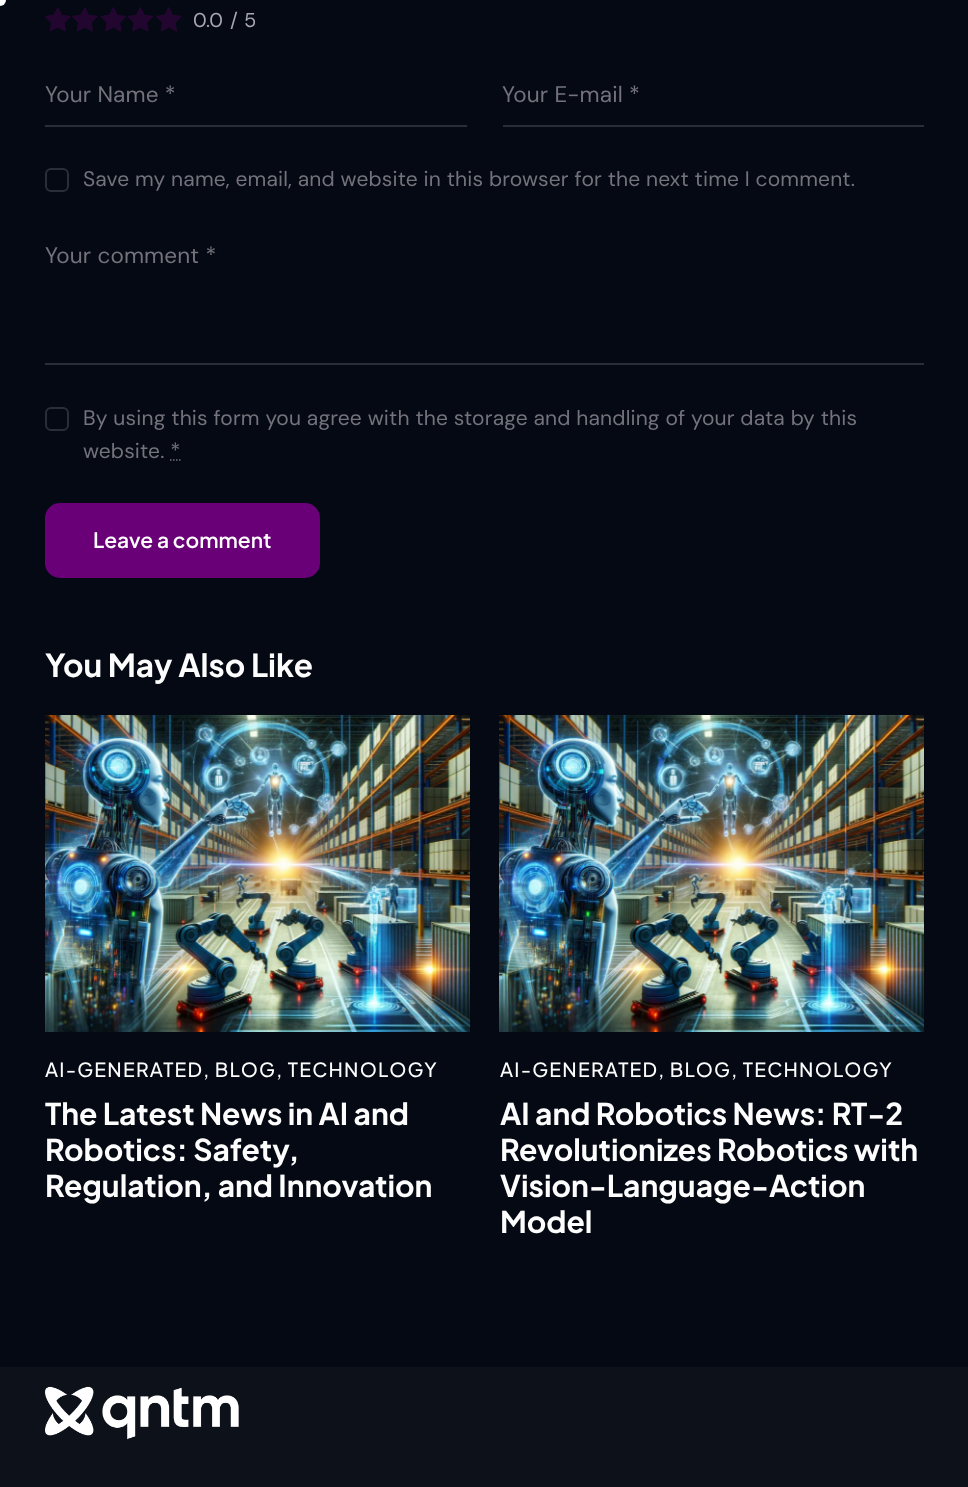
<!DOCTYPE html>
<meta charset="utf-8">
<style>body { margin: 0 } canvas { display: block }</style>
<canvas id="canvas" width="968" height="1487"></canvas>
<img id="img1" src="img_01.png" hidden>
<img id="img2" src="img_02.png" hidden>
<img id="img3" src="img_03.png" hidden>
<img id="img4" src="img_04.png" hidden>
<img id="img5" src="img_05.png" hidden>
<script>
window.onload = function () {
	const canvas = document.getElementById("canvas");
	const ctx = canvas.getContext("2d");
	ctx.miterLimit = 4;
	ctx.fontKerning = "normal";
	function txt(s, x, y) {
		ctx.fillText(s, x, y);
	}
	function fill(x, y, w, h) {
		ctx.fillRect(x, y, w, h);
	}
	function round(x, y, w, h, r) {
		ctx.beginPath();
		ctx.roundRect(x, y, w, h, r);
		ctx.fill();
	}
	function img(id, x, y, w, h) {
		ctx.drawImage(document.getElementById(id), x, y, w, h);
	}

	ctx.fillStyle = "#050913";
	fill(0, 0, 968, 1487);
	ctx.fillStyle = "#FFFFFF";
	ctx.beginPath();
	ctx.arc(0, 0, 6, 0, Math.PI * 2);
	ctx.fill();
	img("img1", 45, 7, 26, 25);
	img("img1", 72, 7, 26, 25);
	img("img2", 100, 7, 26, 25);
	img("img2", 127, 7, 26, 25);
	img("img1", 156, 7, 26, 25);
	ctx.fillStyle = "#2A2E36";
	fill(45, 125, 422, 2);
	fill(503, 125, 421, 2);
	ctx.beginPath();
	ctx.roundRect(46, 169, 22, 22, 5);
	ctx.strokeStyle = "#2A2E36";
	ctx.lineWidth = 2;
	ctx.stroke();
	fill(45, 363, 879, 2);
	ctx.beginPath();
	ctx.roundRect(46, 408, 22, 22, 5);
	ctx.stroke();
	ctx.beginPath();
	ctx.moveTo(170, 460);
	ctx.lineTo(171.5, 460);
	ctx.moveTo(173, 460);
	ctx.lineTo(174.5, 460);
	ctx.moveTo(176, 460);
	ctx.lineTo(177.5, 460);
	ctx.moveTo(179, 460);
	ctx.lineTo(180.5, 460);
	ctx.strokeStyle = "#74727B";
	ctx.lineWidth = 1.5;
	ctx.stroke();
	ctx.fillStyle = "#690077";
	round(45, 503, 275, 75, 15);
	img("img3", 45, 715, 425, 317);
	img("img4", 499, 715, 425, 317);
	ctx.fillStyle = "#0D111A";
	fill(0, 1367, 968, 120);
	img("img5", 45, 1386, 194, 54);
	ctx.letterSpacing = "0.15px";
	ctx.font = "20px DM Sans";
	ctx.fillStyle = "#A9A7B0";
	txt("0.0", 193, 27);
	txt("/", 230, 27);
	txt("5", 244, 27);
	ctx.font = "22.5px DM Sans";
	ctx.fillStyle = "#74727B";
	txt("Your Name *", 45, 102);
	txt("Your E-mail *", 502, 102);
	ctx.font = "21px DM Sans";
	txt("Save my name, email, and website in this browser for the next time I comment.", 83, 186);
	ctx.font = "22.5px DM Sans";
	txt("Your comment *", 45, 263);
	ctx.font = "21px DM Sans";
	txt("By using this form you agree with the storage and handling of your data by this", 83, 425);
	txt("website. *", 83, 458);
	ctx.letterSpacing = "0px";
	ctx.font = "600 21px Plus Jakarta Sans";
	ctx.fillStyle = "#FDFDFD";
	txt("Leave a comment", 93, 548);
	ctx.font = "bold 31.5px Plus Jakarta Sans";
	txt("You May Also Like", 45, 677);
	ctx.letterSpacing = "1.2px";
	ctx.font = "500 19.5px Plus Jakarta Sans";
	txt("AI-GENERATED, BLOG, TECHNOLOGY", 45, 1077);
	ctx.letterSpacing = "0px";
	ctx.font = "bold 30px Plus Jakarta Sans";
	txt("The Latest News in AI and", 45, 1125);
	txt("Robotics: Safety,", 45, 1161);
	txt("Regulation, and Innovation", 45, 1197);
	ctx.letterSpacing = "1.2px";
	ctx.font = "500 19.5px Plus Jakarta Sans";
	txt("AI-GENERATED, BLOG, TECHNOLOGY", 500, 1077);
	ctx.letterSpacing = "0px";
	ctx.font = "bold 30px Plus Jakarta Sans";
	txt("AI and Robotics News: RT-2", 500, 1125);
	txt("Revolutionizes Robotics with", 500, 1161);
	txt("Vision-Language-Action", 500, 1197);
	txt("Model", 500, 1233);
};
</script>
